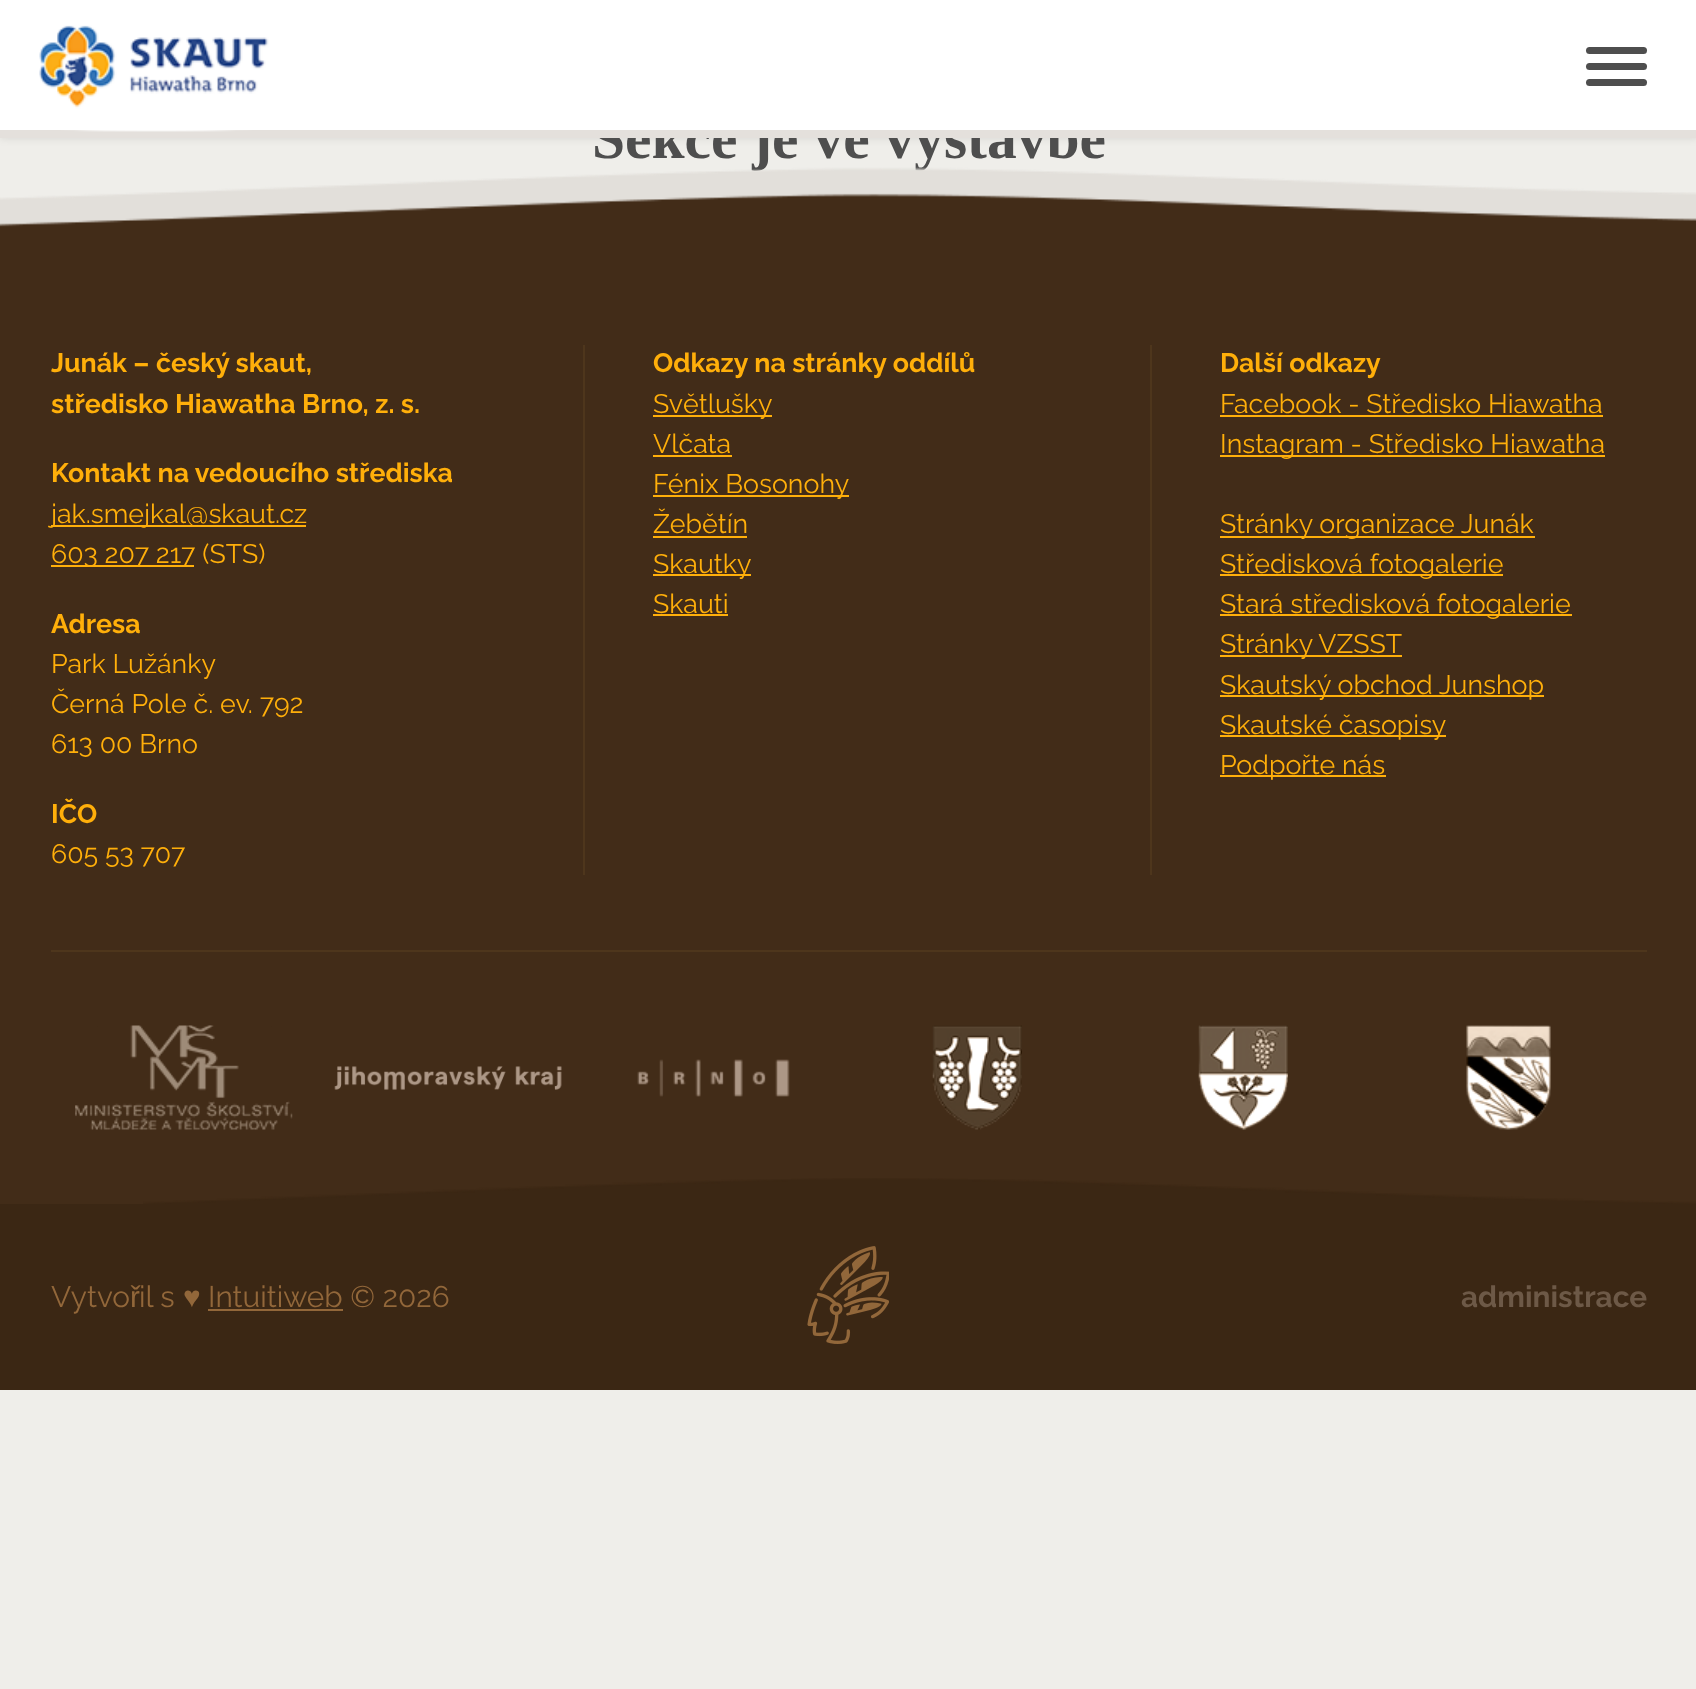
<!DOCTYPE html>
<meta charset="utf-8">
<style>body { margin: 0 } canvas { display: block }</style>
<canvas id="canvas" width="1696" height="1689"></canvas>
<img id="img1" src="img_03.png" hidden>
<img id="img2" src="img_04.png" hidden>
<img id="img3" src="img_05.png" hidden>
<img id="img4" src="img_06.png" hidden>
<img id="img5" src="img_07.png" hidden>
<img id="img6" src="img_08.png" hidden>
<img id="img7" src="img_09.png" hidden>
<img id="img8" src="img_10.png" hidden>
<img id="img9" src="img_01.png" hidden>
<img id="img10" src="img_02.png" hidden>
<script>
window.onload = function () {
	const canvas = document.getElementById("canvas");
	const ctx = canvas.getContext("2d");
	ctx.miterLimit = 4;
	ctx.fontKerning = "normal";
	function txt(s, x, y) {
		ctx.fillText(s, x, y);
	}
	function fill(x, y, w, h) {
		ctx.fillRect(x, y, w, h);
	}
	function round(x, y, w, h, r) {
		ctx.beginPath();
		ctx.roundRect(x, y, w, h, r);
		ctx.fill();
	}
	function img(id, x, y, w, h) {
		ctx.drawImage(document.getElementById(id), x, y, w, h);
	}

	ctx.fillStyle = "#EFEEEA";
	fill(0, 0, 1696, 1689);
	ctx.fillStyle = "rgba(0, 0, 0, 0.1)";
	ctx.filter = "blur(4.5px)";
	ctx.beginPath();
	ctx.rect(0, 0, 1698, 138);
	ctx.fill();
	ctx.filter = "none";
	ctx.fillStyle = "#422C18";
	fill(0, 227, 1696, 977);
	ctx.fillStyle = "#FFAF0A";
	fill(51, 525, 255, 2);
	fill(51, 565, 143, 2);
	ctx.fillStyle = "#4E361C";
	fill(583, 345, 2, 530);
	ctx.fillStyle = "#FFAF0A";
	fill(653, 415, 119, 2);
	fill(653, 455, 79, 2);
	fill(653, 495, 196, 2);
	fill(653, 536, 94, 2);
	fill(653, 574, 98, 2);
	fill(653, 614, 75, 2);
	ctx.fillStyle = "#4E361C";
	fill(1150, 345, 2, 530);
	ctx.fillStyle = "#FFAF0A";
	fill(1220, 415, 383, 2);
	fill(1220, 455, 385, 2);
	fill(1220, 536, 315, 2);
	fill(1220, 574, 283, 2);
	fill(1220, 614, 352, 2);
	fill(1220, 655, 182, 2);
	fill(1220, 695, 324, 2);
	fill(1220, 735, 226, 2);
	fill(1220, 775, 166, 2);
	ctx.fillStyle = "#4E361C";
	fill(51, 950, 1596, 2);
	img("img1", 75, 1025, 218, 105);
	img("img2", 334, 1066, 228, 24);
	img("img3", 637, 1059, 153, 38);
	img("img4", 932, 1025, 90, 105);
	img("img5", 1198, 1025, 90, 105);
	img("img6", 1466, 1025, 85, 105);
	ctx.fillStyle = "#3B2714";
	fill(0, 1204, 1696, 186);
	img("img7", 143, 1178, 1553, 26);
	ctx.fillStyle = "#92673A";
	fill(208, 1309, 135, 2);
	img("img8", 807, 1246, 82, 98);
	ctx.font = "bold 59.5px Liberation Serif";
	ctx.fillStyle = "#4E4E4E";
	txt("Sekce je ve výstavbě", 592, 158);
	ctx.fillStyle = "#FFFFFF";
	fill(0, 0, 1696, 130);
	ctx.fillStyle = "#4E4E4E";
	round(1586, 79, 61, 7, 3.5);
	round(1586, 63, 61, 7, 3.5);
	round(1586, 47, 61, 7, 3.5);
	ctx.fillStyle = "#E4E0DC";
	fill(0, 130, 1696, 8);
	img("img9", 39, 25, 230, 107);
	img("img10", 0, 167, 1696, 60);
	ctx.font = "bold 26.75px Raleway";
	ctx.fillStyle = "#FFAF0A";
	txt("Junák – český skaut,", 51, 372);
	txt("středisko Hiawatha Brno, z. s.", 51, 413);
	txt("Kontakt na vedoucího střediska", 51, 482);
	ctx.font = "26.75px Raleway";
	txt("jak.smejkal@skaut.cz", 51, 523);
	txt("603 207 217 (STS)", 51, 563);
	ctx.font = "bold 26.75px Raleway";
	txt("Adresa", 51, 633);
	ctx.font = "26.75px Raleway";
	txt("Park Lužánky", 51, 673);
	txt("Černá Pole č. ev. 792", 51, 713);
	txt("613 00 Brno", 51, 753);
	ctx.font = "bold 26.75px Raleway";
	txt("IČO", 51, 823);
	ctx.font = "26.75px Raleway";
	txt("605 53 707", 51, 863);
	ctx.font = "bold 26.75px Raleway";
	txt("Odkazy na stránky oddílů", 653, 372);
	ctx.font = "26.75px Raleway";
	txt("Světlušky", 653, 413);
	txt("Vlčata", 653, 453);
	txt("Fénix Bosonohy", 653, 493);
	txt("Žebětín", 653, 533);
	txt("Skautky", 653, 573);
	txt("Skauti", 653, 613);
	ctx.font = "bold 26.75px Raleway";
	txt("Další odkazy", 1220, 372);
	ctx.font = "26.75px Raleway";
	txt("Facebook - Středisko Hiawatha", 1220, 413);
	txt("Instagram - Středisko Hiawatha", 1220, 453);
	txt("Stránky organizace Junák", 1220, 533);
	txt("Středisková fotogalerie", 1220, 573);
	txt("Stará středisková fotogalerie", 1220, 613);
	txt("Stránky VZSST", 1220, 653);
	txt("Skautský obchod Junshop", 1220, 694);
	txt("Skautské časopisy", 1220, 734);
	txt("Podpořte nás", 1220, 774);
	ctx.font = "29.75px Raleway";
	ctx.fillStyle = "#92673A";
	txt("Vytvo", 51, 1307);
	ctx.font = "29.75px Liberation Sans";
	txt("ř", 130, 1307);
	ctx.font = "29.75px Raleway";
	txt("il s", 139, 1307);
	ctx.font = "29.75px Liberation Sans";
	txt("♥", 183, 1307);
	ctx.font = "29.75px Raleway";
	txt("Intuitiweb © 2026", 208, 1307);
	ctx.font = "bold 29.75px Raleway";
	ctx.fillStyle = "#6D5947";
	txt("administrace", 1461, 1307);
};
</script>
